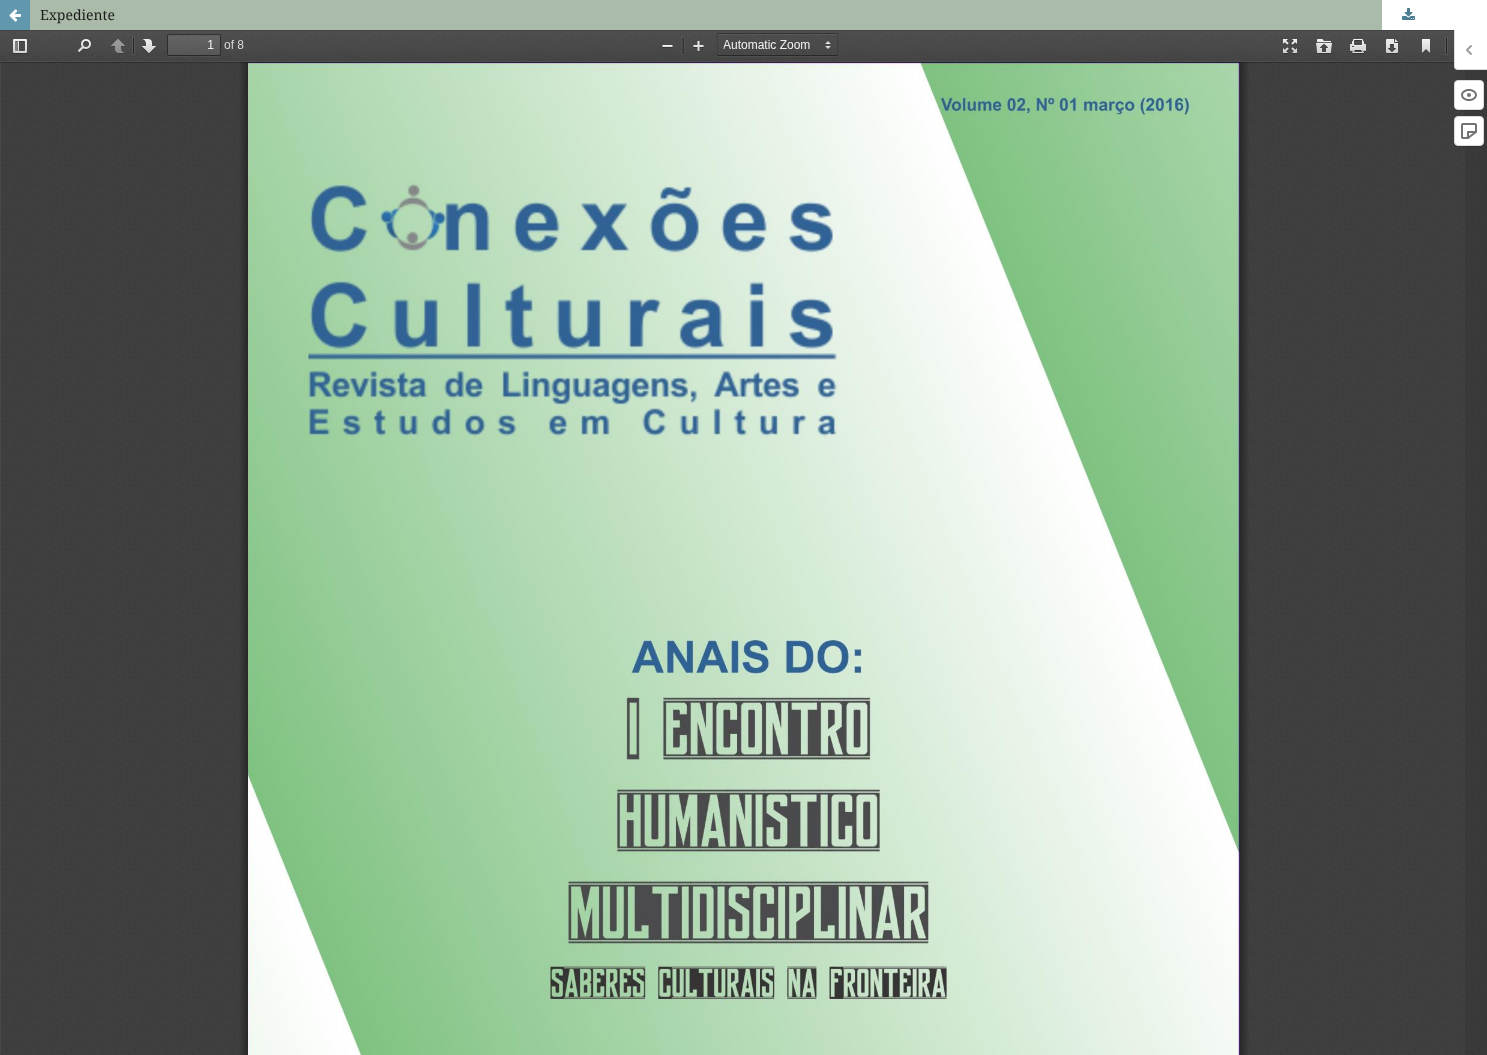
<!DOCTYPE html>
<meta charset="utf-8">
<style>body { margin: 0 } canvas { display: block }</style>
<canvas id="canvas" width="1487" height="1055"></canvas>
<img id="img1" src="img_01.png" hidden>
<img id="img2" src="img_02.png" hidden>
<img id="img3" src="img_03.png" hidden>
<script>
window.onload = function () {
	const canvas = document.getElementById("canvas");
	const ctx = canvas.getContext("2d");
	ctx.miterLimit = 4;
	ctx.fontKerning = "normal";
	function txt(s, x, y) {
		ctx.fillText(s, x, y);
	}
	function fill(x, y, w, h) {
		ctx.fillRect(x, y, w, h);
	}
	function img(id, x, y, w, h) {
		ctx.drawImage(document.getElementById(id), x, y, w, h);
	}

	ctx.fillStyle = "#FFFFFF";
	fill(0, 0, 1487, 1055);
	ctx.fillStyle = "#AABBAA";
	fill(30, 0, 1352, 30);
	ctx.fillStyle = "#6298AE";
	fill(0, 0, 30, 30);
	img("img1", 9, 9, 12, 13);
	img("img2", 1402, 8, 13, 12);
	img("img3", 0, 30, 1487, 1025);
	ctx.font = "14px Noto Serif";
	ctx.fillStyle = "#1B1E1B";
	txt("Expediente", 40, 20);
};
</script>
